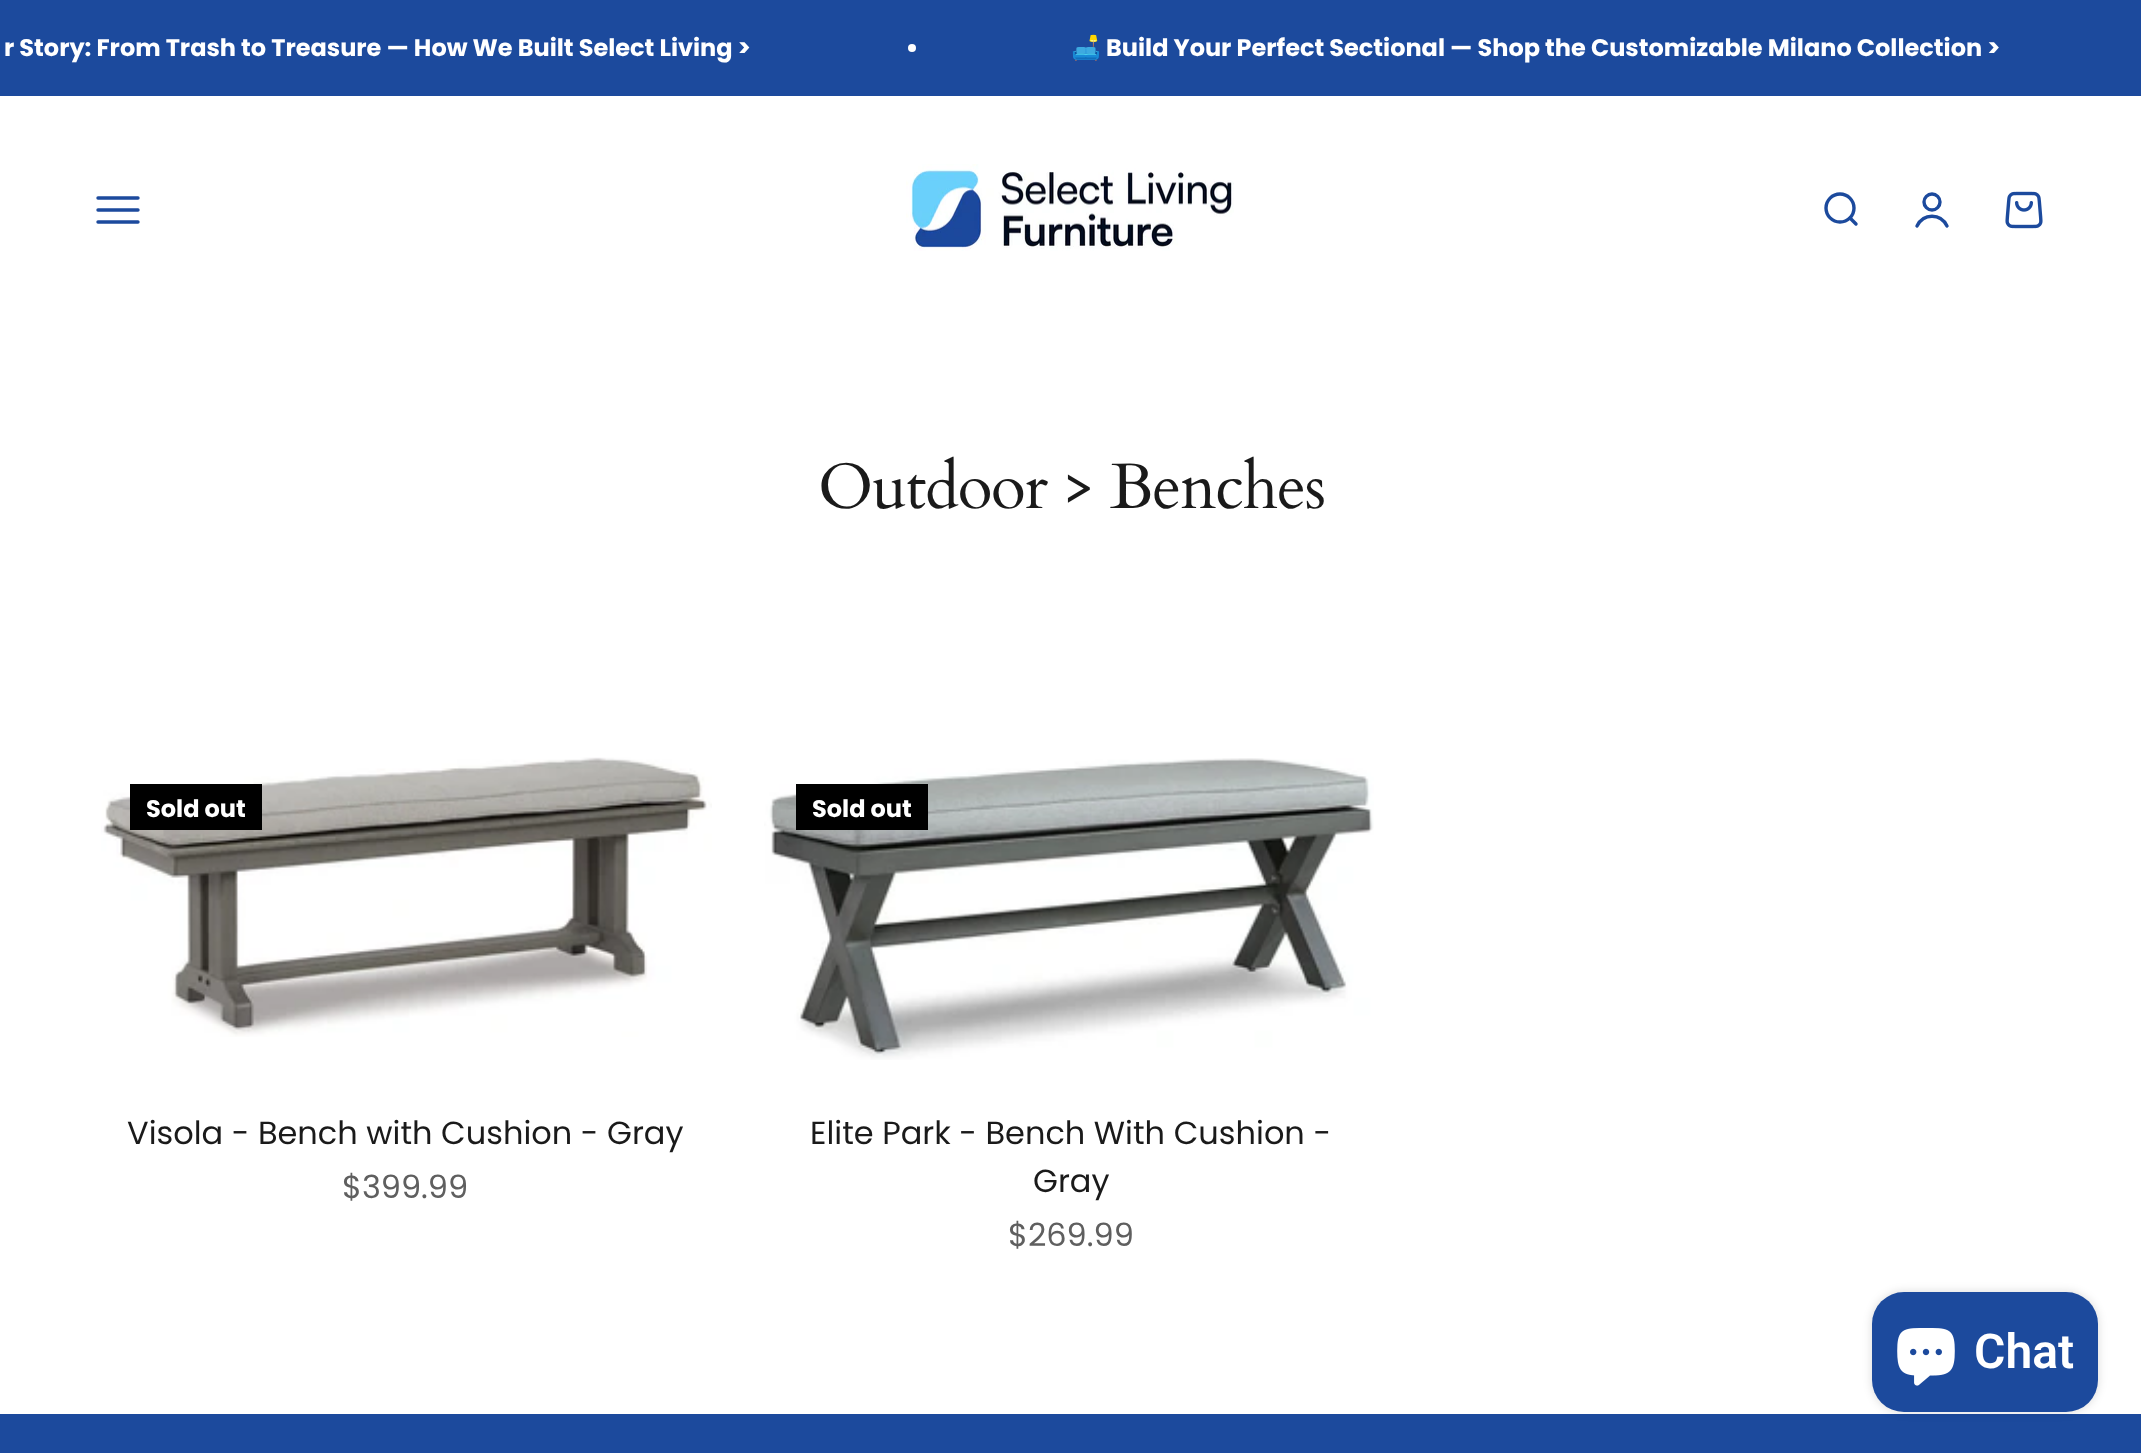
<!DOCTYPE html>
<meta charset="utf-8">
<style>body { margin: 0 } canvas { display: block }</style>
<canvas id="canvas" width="2141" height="1453"></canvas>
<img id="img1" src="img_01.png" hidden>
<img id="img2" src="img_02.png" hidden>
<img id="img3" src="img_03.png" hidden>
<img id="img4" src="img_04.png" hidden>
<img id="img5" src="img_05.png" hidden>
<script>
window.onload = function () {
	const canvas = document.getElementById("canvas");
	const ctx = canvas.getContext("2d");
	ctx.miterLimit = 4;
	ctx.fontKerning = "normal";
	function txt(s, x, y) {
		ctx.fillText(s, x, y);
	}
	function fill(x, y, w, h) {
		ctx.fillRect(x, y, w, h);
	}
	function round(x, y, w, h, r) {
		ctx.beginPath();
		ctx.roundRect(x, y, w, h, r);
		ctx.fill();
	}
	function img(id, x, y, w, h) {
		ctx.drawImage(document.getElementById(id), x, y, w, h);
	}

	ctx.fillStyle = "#FFFFFF";
	fill(0, 0, 2141, 1453);
	ctx.fillStyle = "#1C4A9D";
	fill(0, 0, 2141, 96);
	ctx.fillStyle = "#FFFFFF";
	ctx.beginPath();
	ctx.arc(912, 48, 4, 0, Math.PI * 2);
	ctx.fill();
	ctx.beginPath();
	ctx.moveTo(98, 198);
	ctx.lineTo(138, 198);
	ctx.moveTo(98, 210);
	ctx.lineTo(138, 210);
	ctx.moveTo(98, 222);
	ctx.lineTo(138, 222);
	ctx.strokeStyle = "#1C4A9D";
	ctx.lineWidth = 3.4;
	ctx.lineCap = "round";
	ctx.stroke();
	img("img1", 906, 164, 328, 87);
	ctx.beginPath();
	ctx.arc(1840, 208, 14, 0, Math.PI * 2);
	ctx.stroke();
	ctx.beginPath();
	ctx.moveTo(1850, 218);
	ctx.lineTo(1856, 224);
	ctx.lineJoin = "round";
	ctx.stroke();
	ctx.beginPath();
	ctx.arc(1932, 202, 8, 0, Math.PI * 2);
	ctx.stroke();
	ctx.beginPath();
	ctx.moveTo(1917, 226);
	ctx.bezierCurveTo(1923.5, 213, 1940.5, 213, 1947, 226);
	ctx.lineJoin = "miter";
	ctx.stroke();
	img("img2", 2005, 191, 38, 38);
	img("img3", 101, 757, 611, 280);
	ctx.fillStyle = "#000000";
	fill(130, 784, 132, 46);
	img("img4", 764, 758, 610, 302);
	fill(796, 784, 132, 46);
	ctx.fillStyle = "#1C4A9D";
	fill(0, 1414, 2141, 39);
	ctx.fillStyle = "rgba(0, 0, 0, 0.15)";
	ctx.filter = "blur(5px)";
	ctx.beginPath();
	ctx.roundRect(1872, 1292, 226, 120, 32);
	ctx.fill();
	ctx.filter = "none";
	ctx.fillStyle = "#1C4A9D";
	round(1872, 1292, 226, 120, 32);
	img("img5", 1897, 1328, 58, 58);
	ctx.font = "bold 24px Poppins";
	ctx.fillStyle = "#FFFFFF";
	txt("r Story: From Trash to Treasure — How We Built Select Living >", 4, 56);
	ctx.font = "bold 24px Noto Color Emoji";
	txt("🛋️", 1071, 56);
	ctx.font = "bold 24px Poppins";
	txt("Build Your Perfect Sectional — Shop the Customizable Milano Collection >", 1106, 56);
	ctx.letterSpacing = "-1.25px";
	ctx.font = "64px Cardo";
	ctx.fillStyle = "#1A1A1A";
	txt("Outdoor > Benches", 818, 508);
	ctx.letterSpacing = "0px";
	ctx.font = "bold 24px Poppins";
	ctx.fillStyle = "#FFFFFF";
	txt("Sold out", 146, 817);
	ctx.font = "32px Poppins";
	ctx.fillStyle = "#1A1A1A";
	txt("Visola - Bench with Cushion - Gray", 127, 1144);
	ctx.fillStyle = "#5F5F5F";
	txt("$399.99", 342, 1198);
	ctx.font = "bold 24px Poppins";
	ctx.fillStyle = "#FFFFFF";
	txt("Sold out", 812, 817);
	ctx.font = "32px Poppins";
	ctx.fillStyle = "#1A1A1A";
	txt("Elite Park - Bench With Cushion -", 810, 1144);
	txt("Gray", 1033, 1192);
	ctx.fillStyle = "#5F5F5F";
	txt("$269.99", 1008, 1246);
	ctx.font = "600 48px Roboto";
	ctx.fillStyle = "#FFFFFF";
	txt("Chat", 1974, 1368);
};
</script>
